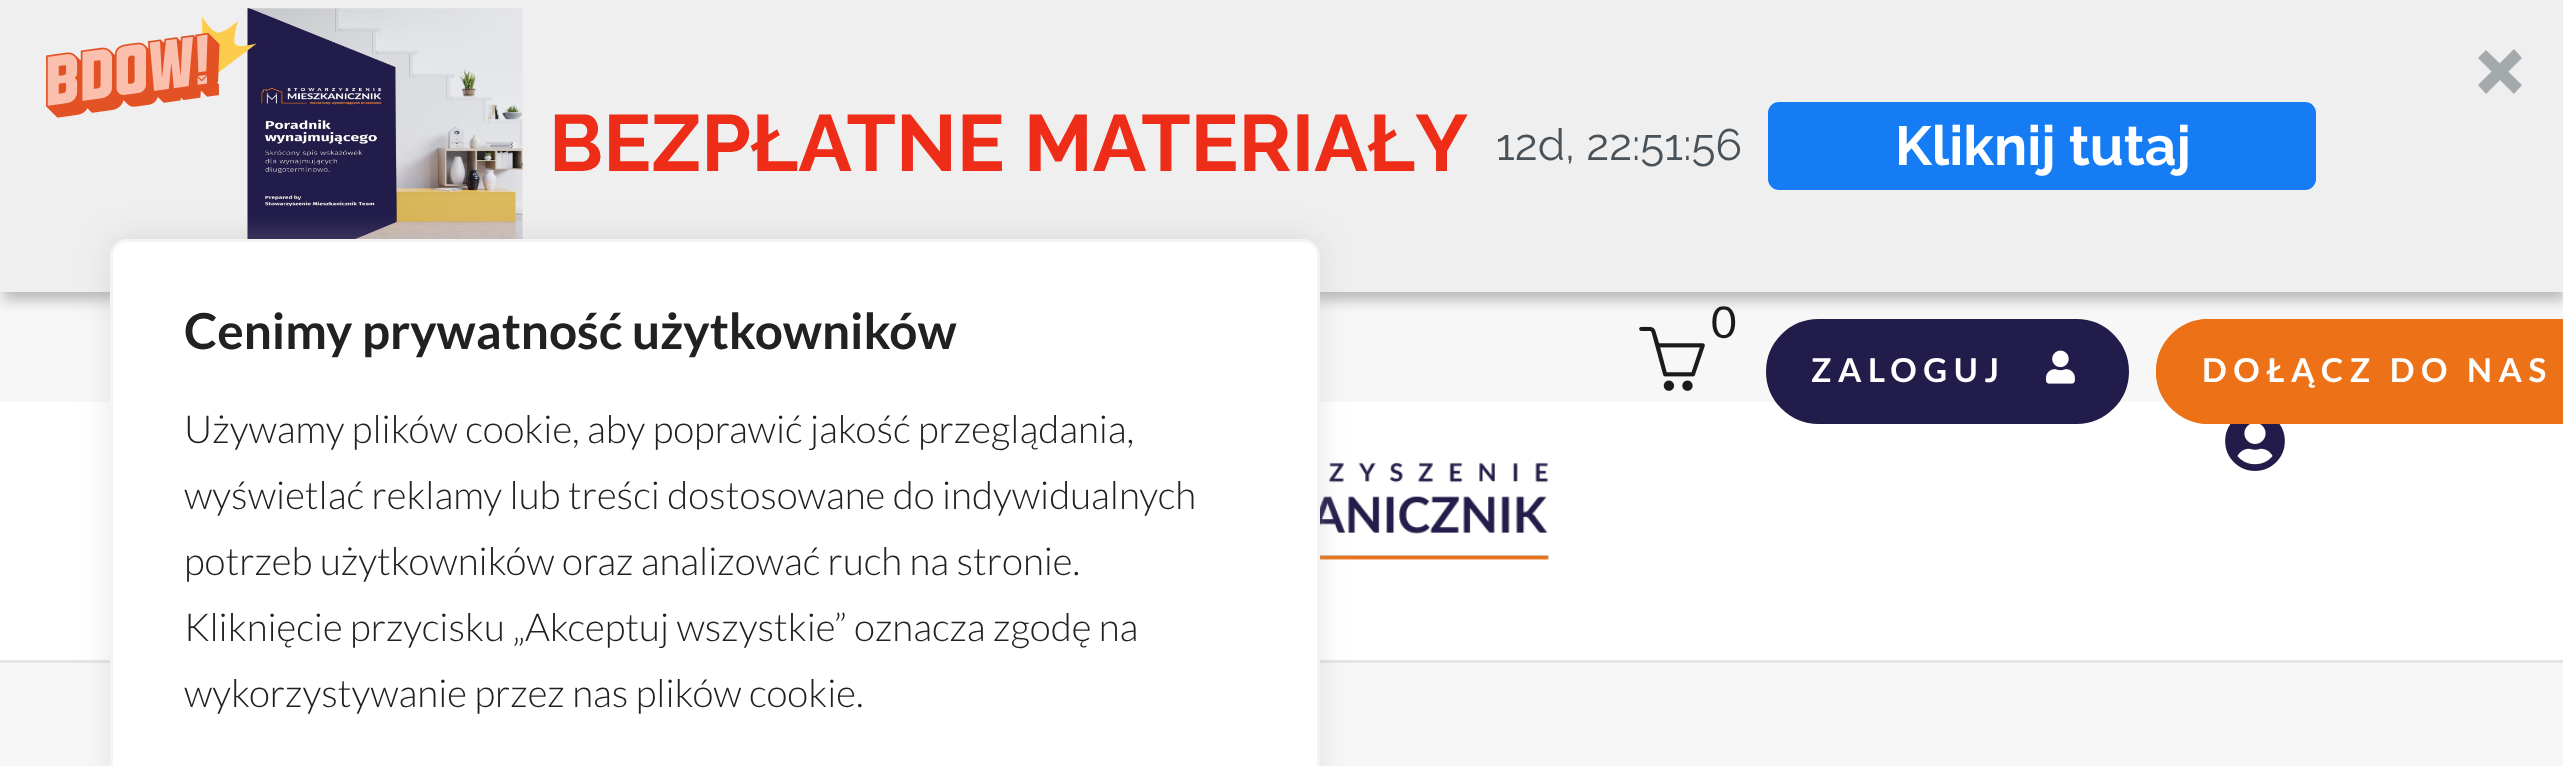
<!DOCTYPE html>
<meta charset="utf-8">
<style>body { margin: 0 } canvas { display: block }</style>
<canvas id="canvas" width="2563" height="766"></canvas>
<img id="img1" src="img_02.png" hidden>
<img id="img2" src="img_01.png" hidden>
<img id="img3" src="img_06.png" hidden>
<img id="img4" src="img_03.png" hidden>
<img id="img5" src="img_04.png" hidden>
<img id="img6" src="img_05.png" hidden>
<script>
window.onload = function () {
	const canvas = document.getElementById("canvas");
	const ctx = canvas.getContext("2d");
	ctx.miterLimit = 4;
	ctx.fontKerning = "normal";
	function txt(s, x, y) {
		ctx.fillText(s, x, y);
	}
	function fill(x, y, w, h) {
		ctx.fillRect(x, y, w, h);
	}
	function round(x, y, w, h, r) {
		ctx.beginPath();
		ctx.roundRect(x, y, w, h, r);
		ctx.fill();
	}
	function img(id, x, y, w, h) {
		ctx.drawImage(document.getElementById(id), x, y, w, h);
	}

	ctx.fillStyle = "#F8F7F7";
	fill(0, 0, 2563, 766);
	ctx.fillStyle = "#FFFFFF";
	fill(0, 402, 2563, 258);
	ctx.fillStyle = "#211C4A";
	ctx.beginPath();
	ctx.roundRect(1767.5, 320.5, 360, 102, 51);
	ctx.fill();
	ctx.strokeStyle = "#211C4A";
	ctx.lineWidth = 3;
	ctx.stroke();
	ctx.fillStyle = "#ED7117";
	ctx.beginPath();
	ctx.roundRect(2156, 319, 407, 105, [52.5, 0, 0, 52.5]);
	ctx.fill();
	ctx.beginPath();
	ctx.roundRect(2157.5, 320.5, 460, 102, 51);
	ctx.strokeStyle = "#ED7117";
	ctx.stroke();
	ctx.fillStyle = "rgba(0, 0, 0, 0.25)";
	ctx.filter = "blur(7px)";
	ctx.beginPath();
	ctx.rect(3, 8, 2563, 292);
	ctx.fill();
	ctx.filter = "none";
	ctx.fillStyle = "#EFEFEF";
	fill(0, 0, 2563, 292);
	img("img1", 247, 8, 276, 231);
	img("img2", 46, 16, 211, 102);
	ctx.fillStyle = "#A4A9AC";
	ctx.beginPath();
	ctx.moveTo(2514, 49);
	ctx.lineTo(2522, 58);
	ctx.lineTo(2486, 94);
	ctx.lineTo(2478, 85);
	ctx.closePath();
	ctx.fill();
	ctx.beginPath();
	ctx.moveTo(2522, 85);
	ctx.lineTo(2514, 94);
	ctx.lineTo(2478, 58);
	ctx.lineTo(2486, 50);
	ctx.closePath();
	ctx.fill();
	ctx.fillStyle = "#157CF4";
	round(1768, 102, 548, 88, 11);
	ctx.fillStyle = "#E5E5E5";
	fill(0, 660, 2563, 3);
	img("img3", 1320, 462, 229, 98);
	ctx.fillStyle = "rgba(172, 171, 171, 0.3)";
	ctx.filter = "blur(14px)";
	ctx.beginPath();
	ctx.roundRect(110, 237, 1210, 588, 17);
	ctx.fill();
	ctx.filter = "none";
	ctx.fillStyle = "#FFFFFF";
	ctx.beginPath();
	ctx.roundRect(111.5, 240.5, 1207, 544, 15.5);
	ctx.fill();
	ctx.strokeStyle = "#F4F4F4";
	ctx.stroke();
	img("img4", 1639, 326, 66, 65);
	img("img5", 2046, 350, 29, 34);
	img("img6", 2225, 424, 60, 47);
	ctx.font = "bold 79.75px Raleway";
	ctx.fillStyle = "#ED2D17";
	txt("BEZPŁATNE MATERIAŁY", 549, 171);
	ctx.font = "44px Raleway";
	ctx.fillStyle = "#495259";
	txt("12d, 22:51:56", 1496, 160);
	ctx.font = "bold 55px Raleway";
	ctx.fillStyle = "#FFFFFF";
	txt("Kliknij tutaj", 1895, 165);
	ctx.font = "bold 49.5px Lato";
	ctx.fillStyle = "#212121";
	txt("Cenimy prywatność użytkowników", 184, 349);
	ctx.font = "300 38.5px Lato";
	txt("Używamy plików cookie, aby poprawić jakość przeglądania,", 184, 443);
	txt("wyświetlać reklamy lub treści dostosowane do indywidualnych", 184, 509);
	txt("potrzeb użytkowników oraz analizować ruch na stronie.", 184, 575);
	txt("Kliknięcie przycisku „Akceptuj wszystkie” oznacza zgodę na", 184, 641);
	txt("wykorzystywanie przez nas plików cookie.", 184, 707);
	ctx.font = "44px Lato";
	ctx.fillStyle = "#1B1B1B";
	txt("0", 1711, 338);
	ctx.letterSpacing = "6.6px";
	ctx.font = "bold 33px Lato";
	ctx.fillStyle = "#FFFFFF";
	txt("ZALOGUJ", 1811, 382);
	txt("DOŁĄCZ DO NAS", 2202, 382);
};
</script>
